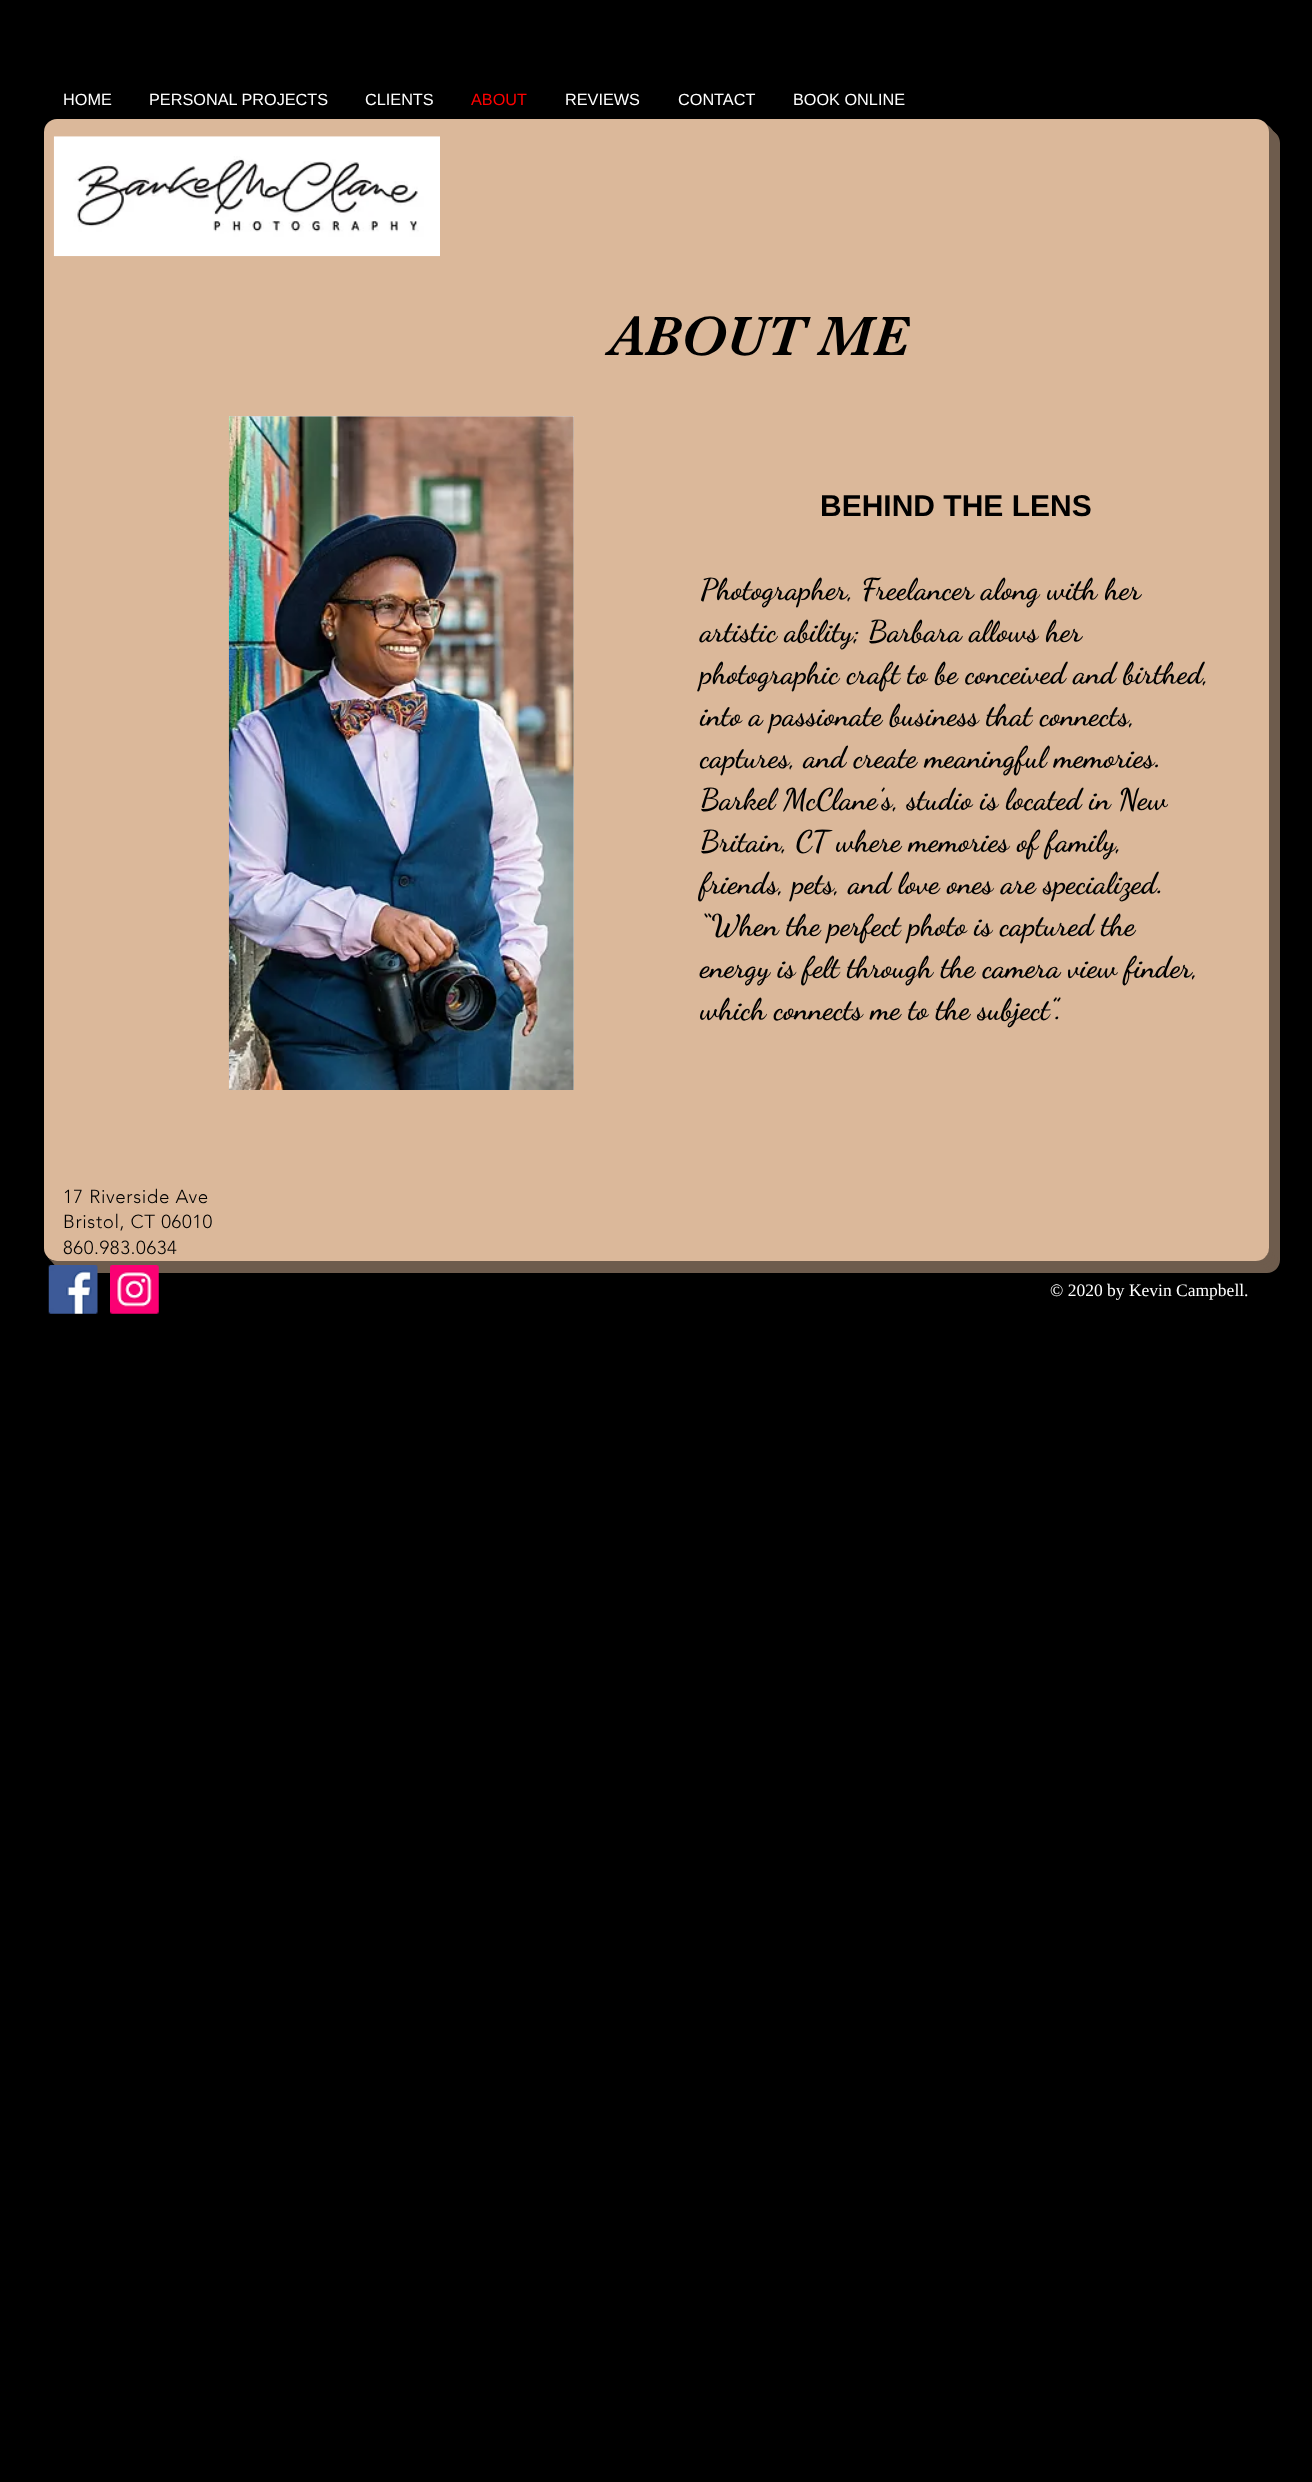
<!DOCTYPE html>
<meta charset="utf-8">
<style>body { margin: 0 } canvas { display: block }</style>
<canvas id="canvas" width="1312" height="2482"></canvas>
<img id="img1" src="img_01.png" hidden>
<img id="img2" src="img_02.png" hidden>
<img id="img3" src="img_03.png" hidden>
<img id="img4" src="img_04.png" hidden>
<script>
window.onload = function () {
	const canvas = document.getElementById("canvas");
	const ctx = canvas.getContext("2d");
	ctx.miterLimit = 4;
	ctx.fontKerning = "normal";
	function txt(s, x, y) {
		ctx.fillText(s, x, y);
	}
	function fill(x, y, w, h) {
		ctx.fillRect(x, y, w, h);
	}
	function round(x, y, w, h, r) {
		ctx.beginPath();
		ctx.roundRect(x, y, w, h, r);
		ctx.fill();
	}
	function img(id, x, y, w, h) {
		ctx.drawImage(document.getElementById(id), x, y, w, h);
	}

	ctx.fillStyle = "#000000";
	fill(0, 0, 1312, 2482);
	ctx.fillStyle = "#6E5C4D";
	ctx.beginPath();
	ctx.moveTo(55, 1261);
	ctx.bezierCurveTo(56, 1268, 61, 1273, 68, 1273);
	ctx.lineTo(1267, 1273);
	ctx.bezierCurveTo(1274, 1273, 1280, 1267, 1280, 1260);
	ctx.lineTo(1280, 143);
	ctx.bezierCurveTo(1280, 136, 1275, 131, 1269, 130);
	ctx.lineTo(1269, 1249);
	ctx.bezierCurveTo(1269, 1256, 1263, 1261, 1256, 1261);
	ctx.closePath();
	ctx.fill();
	ctx.beginPath();
	ctx.moveTo(54, 1261);
	ctx.bezierCurveTo(55, 1266, 60, 1270, 66, 1270);
	ctx.lineTo(1265, 1270);
	ctx.bezierCurveTo(1272, 1270, 1278, 1264, 1278, 1257);
	ctx.lineTo(1278, 141);
	ctx.bezierCurveTo(1278, 135, 1274, 130, 1268, 128);
	ctx.lineTo(1269, 1249);
	ctx.bezierCurveTo(1269, 1256, 1263, 1261, 1256, 1261);
	ctx.closePath();
	ctx.fill();
	ctx.beginPath();
	ctx.moveTo(51, 1260);
	ctx.bezierCurveTo(53, 1265, 58, 1268, 63, 1268);
	ctx.lineTo(1262, 1268);
	ctx.bezierCurveTo(1269, 1268, 1275, 1262, 1275, 1255);
	ctx.lineTo(1275, 138);
	ctx.bezierCurveTo(1275, 133, 1272, 128, 1268, 126);
	ctx.lineTo(1269, 131);
	ctx.lineTo(1269, 1249);
	ctx.bezierCurveTo(1269, 1256, 1263, 1261, 1256, 1261);
	ctx.lineTo(56, 1261);
	ctx.bezierCurveTo(54, 1261, 53, 1261, 51, 1260);
	ctx.closePath();
	ctx.fill();
	ctx.beginPath();
	ctx.moveTo(51, 1260);
	ctx.bezierCurveTo(53, 1263, 57, 1265, 61, 1265);
	ctx.lineTo(1260, 1265);
	ctx.bezierCurveTo(1267, 1265, 1273, 1259, 1273, 1252);
	ctx.lineTo(1273, 136);
	ctx.bezierCurveTo(1273, 131, 1271, 127, 1267, 125);
	ctx.bezierCurveTo(1268, 127, 1269, 129, 1269, 131);
	ctx.lineTo(1269, 1249);
	ctx.bezierCurveTo(1269, 1256, 1263, 1261, 1256, 1261);
	ctx.lineTo(56, 1261);
	ctx.bezierCurveTo(54, 1261, 52, 1261, 51, 1260);
	ctx.closePath();
	ctx.fill();
	ctx.beginPath();
	ctx.moveTo(48, 1258);
	ctx.bezierCurveTo(50, 1261, 54, 1263, 58, 1263);
	ctx.lineTo(1257, 1263);
	ctx.bezierCurveTo(1264, 1263, 1270, 1257, 1270, 1250);
	ctx.lineTo(1270, 133);
	ctx.bezierCurveTo(1270, 130, 1269, 127, 1267, 124);
	ctx.bezierCurveTo(1268, 126, 1269, 129, 1269, 131);
	ctx.lineTo(1269, 1249);
	ctx.bezierCurveTo(1269, 1256, 1263, 1261, 1256, 1261);
	ctx.lineTo(56, 1261);
	ctx.bezierCurveTo(53, 1261, 50, 1260, 48, 1258);
	ctx.closePath();
	ctx.fill();
	ctx.fillStyle = "#DBB89A";
	round(44, 119, 1225, 1142, 13);
	img("img1", 53, 136, 387, 121);
	ctx.fillStyle = "#D8D8D8";
	fill(229, 416, 345, 674);
	img("img2", 228, 416, 346, 674);
	img("img3", 48, 1265, 50, 49);
	img("img4", 110, 1265, 49, 49);
	ctx.font = "16.25px Liberation Sans";
	ctx.fillStyle = "#FFFFFF";
	txt("HOME", 63, 105);
	txt("PERSONAL PROJECTS", 149, 105);
	txt("CLIENTS", 365, 105);
	ctx.fillStyle = "#FF0000";
	txt("ABOUT", 471, 105);
	ctx.fillStyle = "#FFFFFF";
	txt("REVIEWS", 565, 105);
	txt("CONTACT", 678, 105);
	txt("BOOK ONLINE", 793, 105);
	ctx.font = "57.5px 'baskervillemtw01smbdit'";
	ctx.fillStyle = "#000000";
	txt("ABOUT ME", 609, 355);
	ctx.font = "bold 30px Liberation Sans";
	txt("BEHIND THE LENS", 820, 516);
	ctx.font = "bold 30px Dancing Script";
	txt("Photographer, Freelancer along with her", 700, 599);
	txt("artistic ability; Barbara allows her", 700, 641);
	txt("photographic craft to be conceived and birthed,", 700, 683);
	txt("into a passionate business that connects,", 700, 725);
	txt("captures, and create meaningful memories.", 700, 767);
	txt("Barkel McClane’s, studio is located in New", 700, 809);
	txt("Britain, CT where memories of family,", 700, 851);
	txt("friends, pets, and love ones are specialized.", 700, 893);
	txt("“When the perfect photo is captured the", 700, 935);
	txt("energy is felt through the camera view finder,", 700, 977);
	txt("which connects me to the subject”.", 700, 1019);
	ctx.letterSpacing = "0.6px";
	ctx.font = "300 18.75px 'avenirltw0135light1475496'";
	txt("17 Riverside Ave", 63, 1203);
	txt("Bristol, CT 06010", 63, 1228);
	txt("860.983.0634", 63, 1254);
	ctx.letterSpacing = "0px";
	ctx.font = "17.5px Liberation Serif";
	ctx.fillStyle = "#FFFFFF";
	txt("© 2020 by Kevin Campbell.", 1050, 1296);
};
</script>
